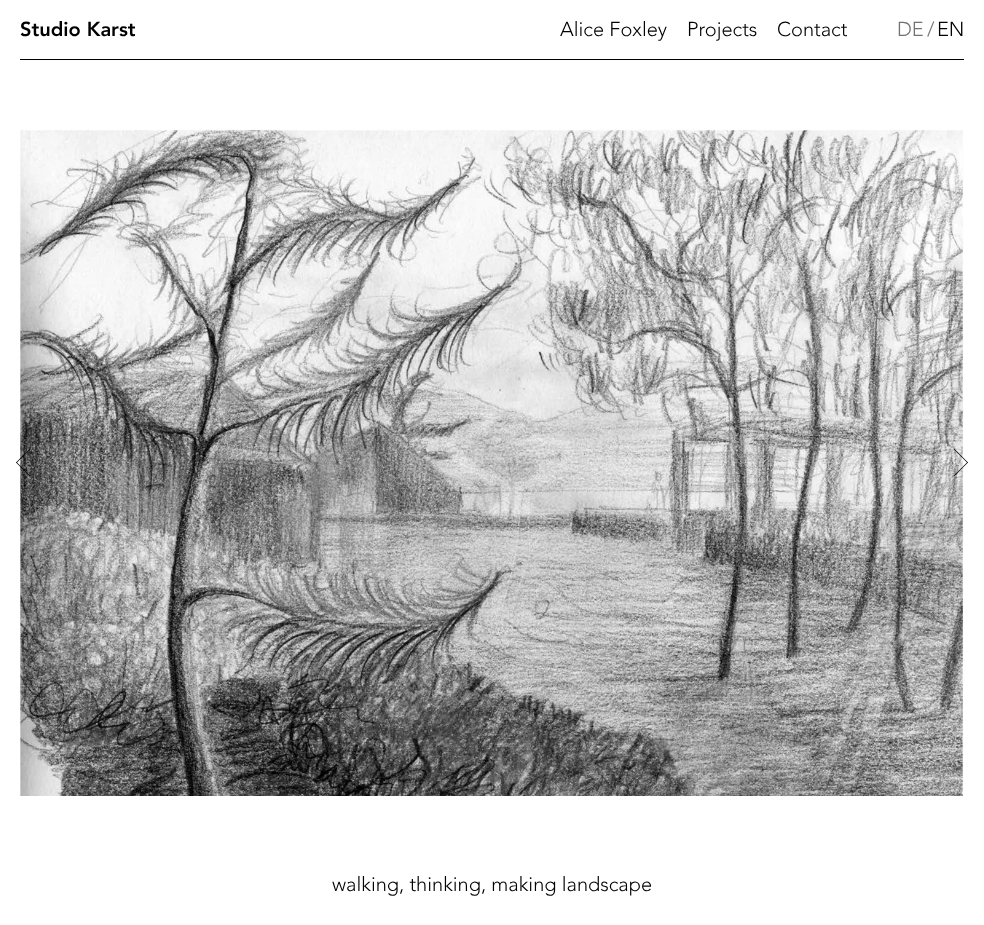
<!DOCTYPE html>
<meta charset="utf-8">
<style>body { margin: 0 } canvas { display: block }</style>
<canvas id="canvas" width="984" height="925"></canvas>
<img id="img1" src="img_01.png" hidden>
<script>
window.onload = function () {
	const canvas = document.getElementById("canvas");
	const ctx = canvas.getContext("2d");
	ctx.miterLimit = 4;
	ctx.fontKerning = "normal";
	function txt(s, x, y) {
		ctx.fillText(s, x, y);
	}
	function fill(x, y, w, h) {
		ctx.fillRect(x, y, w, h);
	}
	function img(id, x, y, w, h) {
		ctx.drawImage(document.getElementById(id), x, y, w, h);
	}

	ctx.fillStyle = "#FFFFFF";
	fill(0, 0, 984, 925);
	ctx.fillStyle = "#000000";
	fill(20, 59, 944, 1);
	img("img1", 20, 129, 944, 667);
	ctx.beginPath();
	ctx.moveTo(16, 462.5);
	ctx.lineTo(30, 448.5);
	ctx.lineTo(30.5, 449);
	ctx.lineTo(16.5, 463);
	ctx.closePath();
	ctx.fill();
	ctx.beginPath();
	ctx.moveTo(16, 462.5);
	ctx.lineTo(16.5, 462);
	ctx.lineTo(30.5, 476);
	ctx.lineTo(30, 476.5);
	ctx.closePath();
	ctx.fill();
	ctx.beginPath();
	ctx.moveTo(968, 462.5);
	ctx.lineTo(954, 476.5);
	ctx.lineTo(953.5, 476);
	ctx.lineTo(967.5, 462);
	ctx.closePath();
	ctx.fill();
	ctx.beginPath();
	ctx.moveTo(968, 462.5);
	ctx.lineTo(967.5, 463);
	ctx.lineTo(953.5, 449);
	ctx.lineTo(954, 448.5);
	ctx.closePath();
	ctx.fill();
	ctx.font = "900 20px Avenir";
	txt("Studio Karst", 20, 36);
	ctx.font = "300 20px Avenir";
	txt("Alice Foxley", 560, 36);
	txt("Projects", 687, 36);
	txt("Contact", 777, 36);
	ctx.fillStyle = "#737373";
	txt("DE", 897, 36);
	txt("/", 927, 36);
	ctx.fillStyle = "#000000";
	txt("EN", 937, 36);
	txt("walking, thinking, making landscape", 332, 891);
};
</script>
